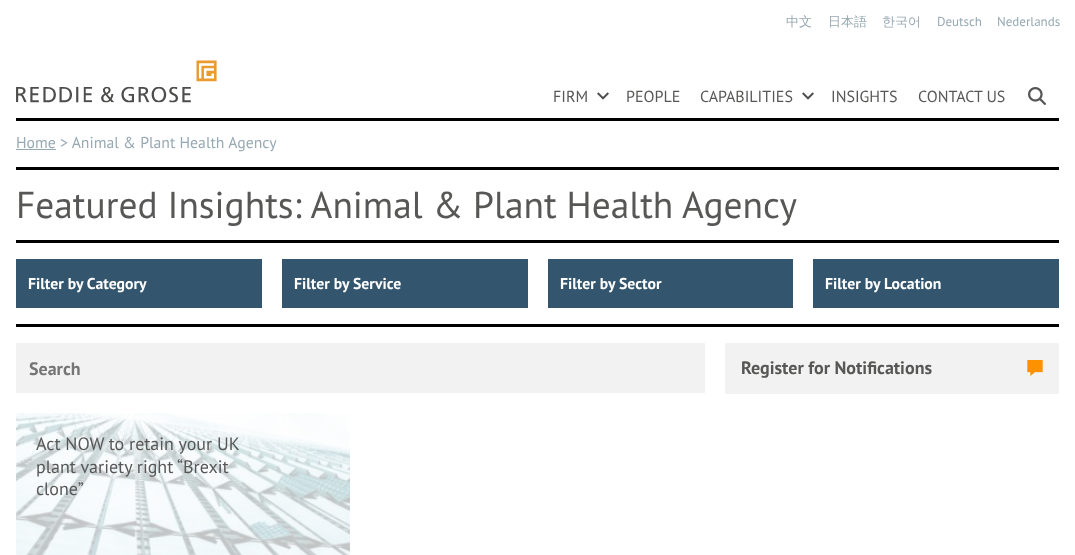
<!DOCTYPE html>
<meta charset="utf-8">
<style>body { margin: 0 } canvas { display: block }</style>
<canvas id="canvas" width="1075" height="555"></canvas>
<img id="img1" src="img_01.png" hidden>
<img id="img2" src="img_02.png" hidden>
<img id="img3" src="img_03.png" hidden>
<img id="img4" src="img_04.png" hidden>
<img id="img5" src="img_05.png" hidden>
<script>
window.onload = function () {
	const canvas = document.getElementById("canvas");
	const ctx = canvas.getContext("2d");
	ctx.miterLimit = 4;
	ctx.fontKerning = "normal";
	function txt(s, x, y) {
		ctx.fillText(s, x, y);
	}
	function fill(x, y, w, h) {
		ctx.fillRect(x, y, w, h);
	}
	function img(id, x, y, w, h) {
		ctx.drawImage(document.getElementById(id), x, y, w, h);
	}

	ctx.fillStyle = "#FFFFFF";
	fill(0, 0, 1075, 555);
	img("img1", 16, 60, 201, 43);
	img("img2", 597, 92, 12, 8);
	img("img2", 802, 92, 12, 8);
	img("img3", 1028, 87, 18, 18);
	ctx.fillStyle = "#000000";
	fill(16, 118, 1043, 3);
	fill(16, 167, 1043, 3);
	ctx.fillStyle = "#97A9B2";
	fill(16, 149, 40, 1);
	ctx.fillStyle = "#000000";
	fill(16, 240, 1043, 3);
	fill(16, 324, 1043, 3);
	ctx.fillStyle = "#33566E";
	fill(16, 259, 246, 49);
	fill(282, 259, 246, 49);
	fill(548, 259, 245, 49);
	fill(813, 259, 246, 49);
	ctx.fillStyle = "#F2F2F2";
	fill(16, 343, 689, 50);
	fill(725, 343, 334, 51);
	img("img4", 1027, 360, 16, 16);
	img("img5", 16, 413, 334, 142);
	ctx.font = "500 13px WenQuanYi Zen Hei";
	ctx.fillStyle = "#97A9B2";
	txt("中文", 786, 26);
	txt("日本語", 828, 26);
	txt("한국어", 882, 26);
	ctx.font = "13px PT Sans";
	txt("Deutsch", 937, 26);
	txt("Nederlands", 997, 26);
	ctx.font = "16px PT Sans";
	ctx.fillStyle = "#575756";
	txt("FIRM", 553, 102);
	txt("PEOPLE", 626, 102);
	txt("CAPABILITIES", 700, 102);
	txt("INSIGHTS", 831, 102);
	txt("CONTACT US", 918, 102);
	ctx.font = "15.75px PT Sans";
	ctx.fillStyle = "#97A9B2";
	txt("Home", 16, 148);
	txt("> Animal & Plant Health Agency", 60, 148);
	ctx.font = "37.4px PT Sans";
	ctx.fillStyle = "#575756";
	txt("Featured Insights: Animal & Plant Health Agency", 16, 218);
	ctx.font = "bold 15.75px PT Sans";
	ctx.fillStyle = "#FFFFFF";
	txt("Filter by Category", 28, 289);
	txt("Filter by Service", 294, 289);
	txt("Filter by Sector", 560, 289);
	txt("Filter by Location", 825, 289);
	ctx.font = "bold 18px PT Sans";
	ctx.fillStyle = "#757575";
	txt("Search", 29, 375);
	ctx.fillStyle = "#575756";
	txt("Register for Notifications", 741, 374);
	ctx.font = "18px PT Sans";
	txt("Act NOW to retain your UK", 36, 450);
	txt("plant variety right “Brexit", 36, 473);
	txt("clone”", 36, 495);
};
</script>
